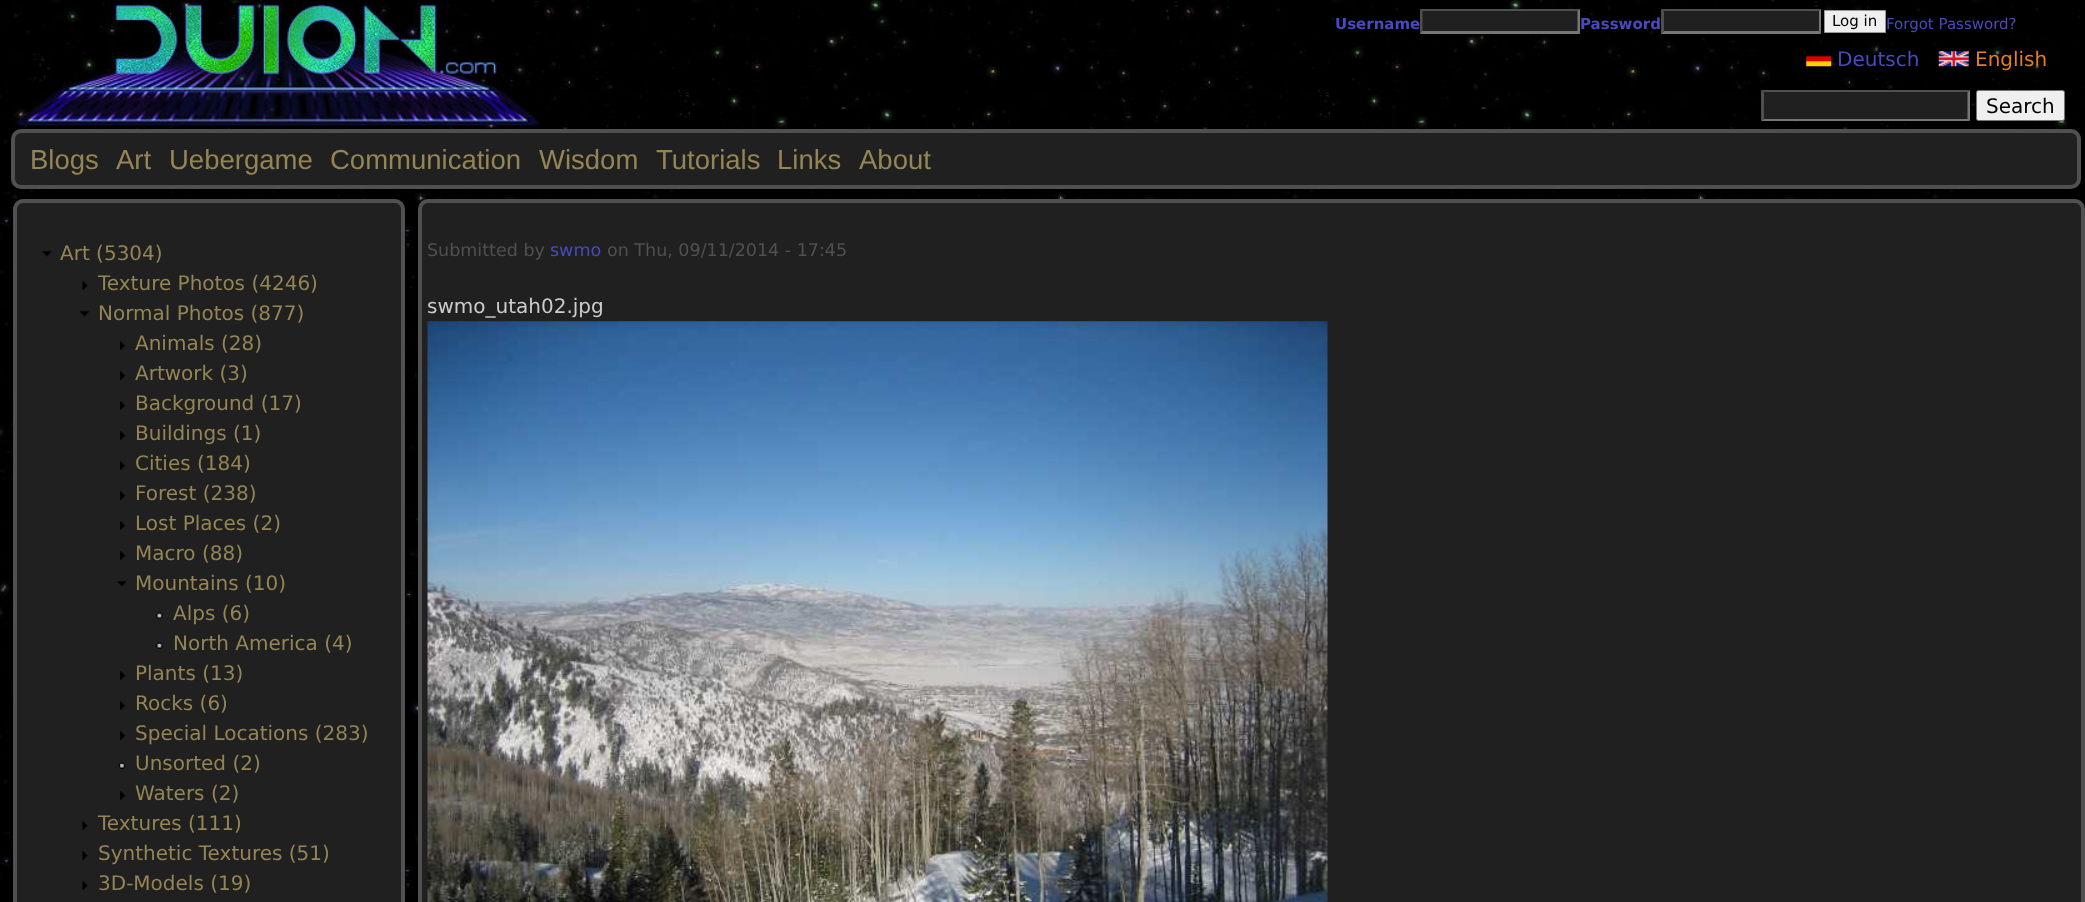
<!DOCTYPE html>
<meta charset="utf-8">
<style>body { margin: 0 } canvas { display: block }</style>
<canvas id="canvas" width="2085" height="902"></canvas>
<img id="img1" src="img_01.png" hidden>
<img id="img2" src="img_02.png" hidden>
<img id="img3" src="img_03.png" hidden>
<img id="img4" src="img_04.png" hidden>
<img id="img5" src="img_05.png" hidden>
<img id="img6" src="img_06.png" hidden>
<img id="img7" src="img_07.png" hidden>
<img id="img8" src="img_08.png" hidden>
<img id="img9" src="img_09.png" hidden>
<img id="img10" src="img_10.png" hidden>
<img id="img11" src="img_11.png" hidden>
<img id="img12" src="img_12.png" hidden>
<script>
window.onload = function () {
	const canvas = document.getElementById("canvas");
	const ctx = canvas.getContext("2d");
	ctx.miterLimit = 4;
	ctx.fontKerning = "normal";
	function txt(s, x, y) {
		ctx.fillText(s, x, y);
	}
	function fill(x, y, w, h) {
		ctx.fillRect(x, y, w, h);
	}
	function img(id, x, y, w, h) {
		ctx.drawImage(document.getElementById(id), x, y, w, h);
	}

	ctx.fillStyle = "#FFFFFF";
	fill(0, 0, 2085, 902);
	img("img1", 0, 0, 2085, 902);
	img("img2", 12, 2, 532, 126);
	ctx.fillStyle = "#202020";
	fill(1420, 9, 160, 25);
	ctx.fillStyle = "#4F4F4F";
	ctx.beginPath();
	ctx.moveTo(1420, 9);
	ctx.lineTo(1580, 9);
	ctx.lineTo(1578, 11);
	ctx.lineTo(1422, 11);
	ctx.closePath();
	ctx.fill();
	ctx.fillStyle = "#767676";
	ctx.beginPath();
	ctx.moveTo(1580, 9);
	ctx.lineTo(1580, 34);
	ctx.lineTo(1577.5, 31);
	ctx.lineTo(1577.5, 11);
	ctx.closePath();
	ctx.fill();
	ctx.beginPath();
	ctx.moveTo(1580, 34);
	ctx.lineTo(1420, 34);
	ctx.lineTo(1422, 31);
	ctx.lineTo(1578, 31);
	ctx.closePath();
	ctx.fill();
	ctx.fillStyle = "#4F4F4F";
	ctx.beginPath();
	ctx.moveTo(1420, 34);
	ctx.lineTo(1420, 9);
	ctx.lineTo(1422.5, 11);
	ctx.lineTo(1422.5, 31);
	ctx.closePath();
	ctx.fill();
	ctx.fillStyle = "#202020";
	fill(1661, 9, 160, 25);
	ctx.fillStyle = "#4F4F4F";
	ctx.beginPath();
	ctx.moveTo(1661, 9);
	ctx.lineTo(1821, 9);
	ctx.lineTo(1819, 11);
	ctx.lineTo(1664, 11);
	ctx.closePath();
	ctx.fill();
	ctx.fillStyle = "#767676";
	ctx.beginPath();
	ctx.moveTo(1821, 9);
	ctx.lineTo(1821, 34);
	ctx.lineTo(1819, 31);
	ctx.lineTo(1819, 11);
	ctx.closePath();
	ctx.fill();
	ctx.beginPath();
	ctx.moveTo(1821, 34);
	ctx.lineTo(1661, 34);
	ctx.lineTo(1664, 31);
	ctx.lineTo(1819, 31);
	ctx.closePath();
	ctx.fill();
	ctx.fillStyle = "#4F4F4F";
	ctx.beginPath();
	ctx.moveTo(1661, 34);
	ctx.lineTo(1661, 9);
	ctx.lineTo(1664, 11);
	ctx.lineTo(1664, 31);
	ctx.closePath();
	ctx.fill();
	ctx.fillStyle = "#EFEFEF";
	ctx.beginPath();
	ctx.rect(1824.5, 10.5, 61, 22);
	ctx.fill();
	ctx.strokeStyle = "#999999";
	ctx.stroke();
	img("img3", 1806, 56, 26, 11);
	img("img4", 1938, 51, 31, 16);
	ctx.fillStyle = "#202020";
	fill(1761, 90, 209, 31);
	ctx.fillStyle = "#4F4F4F";
	ctx.beginPath();
	ctx.moveTo(1761, 90);
	ctx.lineTo(1970, 90);
	ctx.lineTo(1968, 92);
	ctx.lineTo(1764, 92);
	ctx.closePath();
	ctx.fill();
	ctx.fillStyle = "#767676";
	ctx.beginPath();
	ctx.moveTo(1970, 90);
	ctx.lineTo(1970, 121);
	ctx.lineTo(1967.5, 119);
	ctx.lineTo(1967.5, 92.5);
	ctx.closePath();
	ctx.fill();
	ctx.beginPath();
	ctx.moveTo(1970, 121);
	ctx.lineTo(1761, 121);
	ctx.lineTo(1764, 119);
	ctx.lineTo(1968, 119);
	ctx.closePath();
	ctx.fill();
	ctx.fillStyle = "#4F4F4F";
	ctx.beginPath();
	ctx.moveTo(1761, 121);
	ctx.lineTo(1761, 90);
	ctx.lineTo(1764, 92.5);
	ctx.lineTo(1764, 119);
	ctx.closePath();
	ctx.fill();
	ctx.fillStyle = "#EFEFEF";
	ctx.beginPath();
	ctx.roundRect(1976.5, 90.5, 88, 30, 2);
	ctx.fill();
	ctx.strokeStyle = "#767676";
	ctx.stroke();
	ctx.fillStyle = "#202020";
	ctx.beginPath();
	ctx.roundRect(13, 131, 2066, 56, 8);
	ctx.fill();
	ctx.strokeStyle = "#505050";
	ctx.lineWidth = 4;
	ctx.stroke();
	ctx.beginPath();
	ctx.roundRect(15, 201, 388, 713, 8);
	ctx.fill();
	ctx.stroke();
	img("img5", 42, 251, 10, 6);
	img("img6", 82, 281, 6, 9);
	img("img7", 80, 311, 9, 6);
	img("img8", 120, 341, 5, 9);
	img("img8", 120, 371, 5, 9);
	img("img8", 120, 401, 5, 9);
	img("img8", 120, 431, 5, 9);
	img("img8", 120, 461, 5, 9);
	img("img8", 120, 491, 5, 9);
	img("img8", 120, 521, 5, 9);
	img("img8", 120, 551, 5, 9);
	img("img9", 117, 581, 10, 6);
	img("img10", 156, 612, 7, 7);
	img("img10", 156, 642, 7, 7);
	img("img8", 120, 671, 5, 9);
	img("img8", 120, 701, 5, 9);
	img("img8", 120, 731, 5, 9);
	img("img11", 118, 762, 7, 7);
	img("img8", 120, 791, 5, 9);
	img("img6", 82, 821, 6, 9);
	img("img6", 82, 851, 6, 9);
	img("img6", 82, 881, 6, 9);
	ctx.beginPath();
	ctx.roundRect(420, 201, 1663, 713, 8);
	ctx.fill();
	ctx.stroke();
	img("img12", 427, 321, 901, 581);
	ctx.font = "bold 15px DejaVu Sans";
	ctx.fillStyle = "#474BBF";
	txt("Username", 1335, 29);
	txt("Password", 1580, 29);
	ctx.font = "15px DejaVu Sans";
	ctx.fillStyle = "#000000";
	txt("Log in", 1832, 26);
	ctx.fillStyle = "#474BBF";
	txt("Forgot Password?", 1886, 29);
	ctx.font = "20px DejaVu Sans";
	txt("Deutsch", 1837, 66);
	ctx.fillStyle = "#E67F19";
	txt("English", 1975, 66);
	ctx.fillStyle = "#000000";
	txt("Search", 1986, 113);
	ctx.font = "27.5px Liberation Sans";
	ctx.fillStyle = "#938554";
	txt("Blogs", 30, 169);
	txt("Art", 116, 169);
	txt("Uebergame", 169, 169);
	txt("Communication", 330, 169);
	txt("Wisdom", 539, 169);
	txt("Tutorials", 656, 169);
	txt("Links", 777, 169);
	txt("About", 859, 169);
	ctx.font = "20px DejaVu Sans";
	txt("Art (5304)", 60, 260);
	txt("Texture Photos (4246)", 98, 290);
	txt("Normal Photos (877)", 98, 320);
	txt("Animals (28)", 135, 350);
	txt("Artwork (3)", 135, 380);
	txt("Background (17)", 135, 410);
	txt("Buildings (1)", 135, 440);
	txt("Cities (184)", 135, 470);
	txt("Forest (238)", 135, 500);
	txt("Lost Places (2)", 135, 530);
	txt("Macro (88)", 135, 560);
	txt("Mountains (10)", 135, 590);
	txt("Alps (6)", 173, 620);
	txt("North America (4)", 173, 650);
	txt("Plants (13)", 135, 680);
	txt("Rocks (6)", 135, 710);
	txt("Special Locations (283)", 135, 740);
	txt("Unsorted (2)", 135, 770);
	txt("Waters (2)", 135, 800);
	txt("Textures (111)", 98, 830);
	txt("Synthetic Textures (51)", 98, 860);
	txt("3D-Models (19)", 98, 890);
	ctx.font = "17.5px DejaVu Sans";
	ctx.fillStyle = "#505050";
	txt("Submitted by", 427, 256);
	ctx.fillStyle = "#474BBF";
	txt("swmo", 550, 256);
	ctx.fillStyle = "#505050";
	txt("on Thu, 09/11/2014 - 17:45", 607, 256);
	ctx.font = "20px DejaVu Sans";
	ctx.fillStyle = "#CCCCCC";
	txt("swmo_utah02.jpg", 427, 313);
};
</script>
